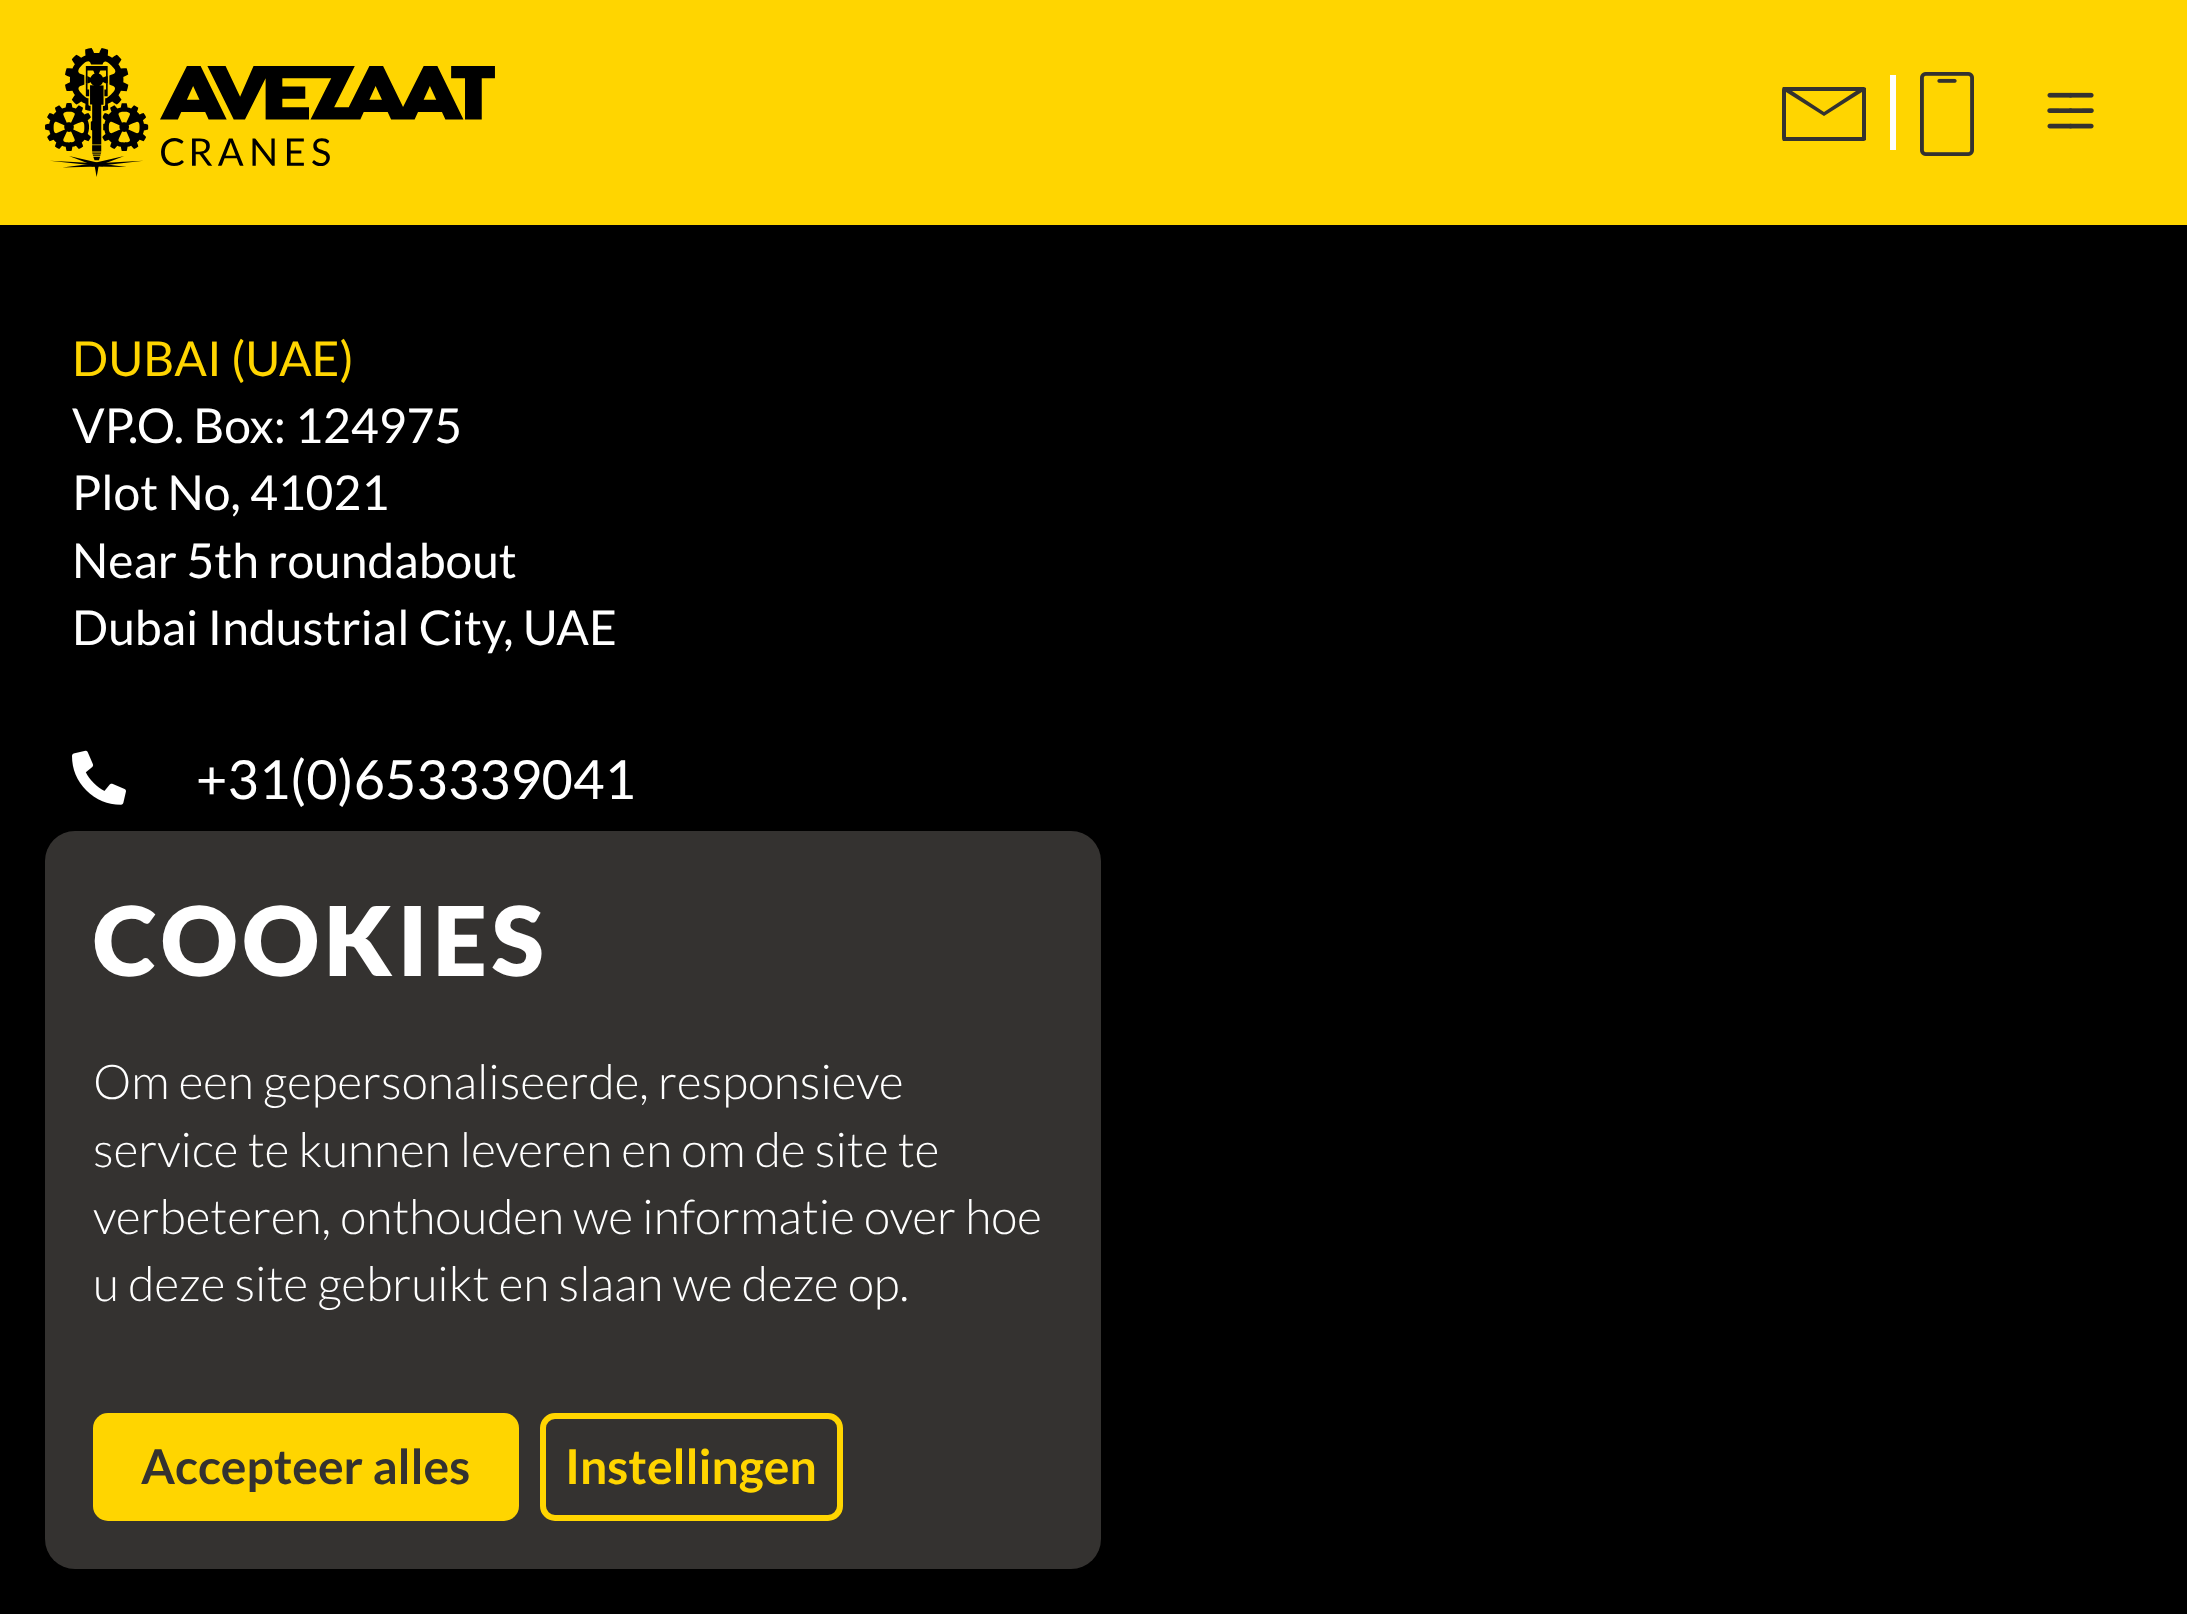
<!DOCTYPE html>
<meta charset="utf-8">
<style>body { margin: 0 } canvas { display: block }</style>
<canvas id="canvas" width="2187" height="1614"></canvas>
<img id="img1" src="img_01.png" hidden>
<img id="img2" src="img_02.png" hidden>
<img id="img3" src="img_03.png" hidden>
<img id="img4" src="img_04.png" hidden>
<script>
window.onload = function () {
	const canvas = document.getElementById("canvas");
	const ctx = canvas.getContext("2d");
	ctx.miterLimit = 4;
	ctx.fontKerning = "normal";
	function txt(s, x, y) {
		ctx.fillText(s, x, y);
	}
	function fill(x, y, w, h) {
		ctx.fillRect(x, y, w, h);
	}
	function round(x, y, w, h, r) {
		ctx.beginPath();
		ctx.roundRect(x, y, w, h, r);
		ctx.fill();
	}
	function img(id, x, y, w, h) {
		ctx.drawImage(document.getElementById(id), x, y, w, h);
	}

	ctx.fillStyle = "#000000";
	fill(0, 0, 2187, 1614);
	ctx.fillStyle = "#FFD500";
	fill(0, 0, 2187, 225);
	img("img1", 45, 48, 450, 129);
	ctx.save();
	ctx.beginPath();
	ctx.rect(1782, 87, 84, 54);
	ctx.clip();
	ctx.fillStyle = "#343230";
	ctx.beginPath();
	ctx.moveTo(1786, 137);
	ctx.lineTo(1786, 92);
	ctx.lineTo(1824, 116);
	ctx.lineTo(1862, 92);
	ctx.lineTo(1862, 137);
	ctx.closePath();
	ctx.moveTo(1856, 91);
	ctx.lineTo(1824, 112);
	ctx.lineTo(1792, 91);
	ctx.closePath();
	ctx.moveTo(1864, 87);
	ctx.lineTo(1797, 87);
	ctx.bezierCurveTo(1781, 87, 1782, 83, 1782, 97);
	ctx.lineTo(1782, 131);
	ctx.bezierCurveTo(1782, 145, 1781, 141, 1797, 141);
	ctx.lineTo(1864, 141);
	ctx.lineTo(1866, 140);
	ctx.lineTo(1866, 88);
	ctx.lineTo(1864, 87);
	ctx.fill();
	ctx.restore();
	ctx.fillStyle = "#FFFFFF";
	fill(1890, 75, 6, 75);
	img("img2", 1920, 72, 54, 84);
	img("img3", 2047, 92, 47, 37);
	img("img4", 72, 750, 54, 55);
	ctx.fillStyle = "#343230";
	round(45, 831, 1056, 738, 30);
	ctx.fillStyle = "#FFD500";
	round(93, 1413, 426, 108, 15);
	ctx.beginPath();
	ctx.roundRect(543, 1416, 297, 102, 12);
	ctx.strokeStyle = "#FFD500";
	ctx.lineWidth = 6;
	ctx.stroke();
	ctx.font = "48px Lato";
	txt("DUBAI (UAE)", 72, 376);
	ctx.fillStyle = "#FFFFFF";
	txt("VP.O. Box: 124975", 72, 443);
	txt("Plot No, 41021", 72, 510);
	txt("Near 5th roundabout", 72, 578);
	txt("Dubai Industrial City, UAE", 72, 645);
	ctx.font = "54px Lato";
	txt("+31(0)653339041", 196, 799);
	ctx.letterSpacing = "4.75px";
	ctx.font = "900 96px Lato";
	txt("COOKIES", 93, 976);
	ctx.letterSpacing = "0px";
	ctx.font = "300 48px Lato";
	txt("Om een gepersonaliseerde, responsieve", 93, 1099);
	txt("service te kunnen leveren en om de site te", 93, 1167);
	txt("verbeteren, onthouden we informatie over hoe", 93, 1234);
	txt("u deze site gebruikt en slaan we deze op.", 93, 1301);
	ctx.font = "bold 48px Lato";
	ctx.fillStyle = "#343230";
	txt("Accepteer alles", 141, 1484);
	ctx.fillStyle = "#FFD500";
	txt("Instellingen", 565, 1484);
};
</script>
